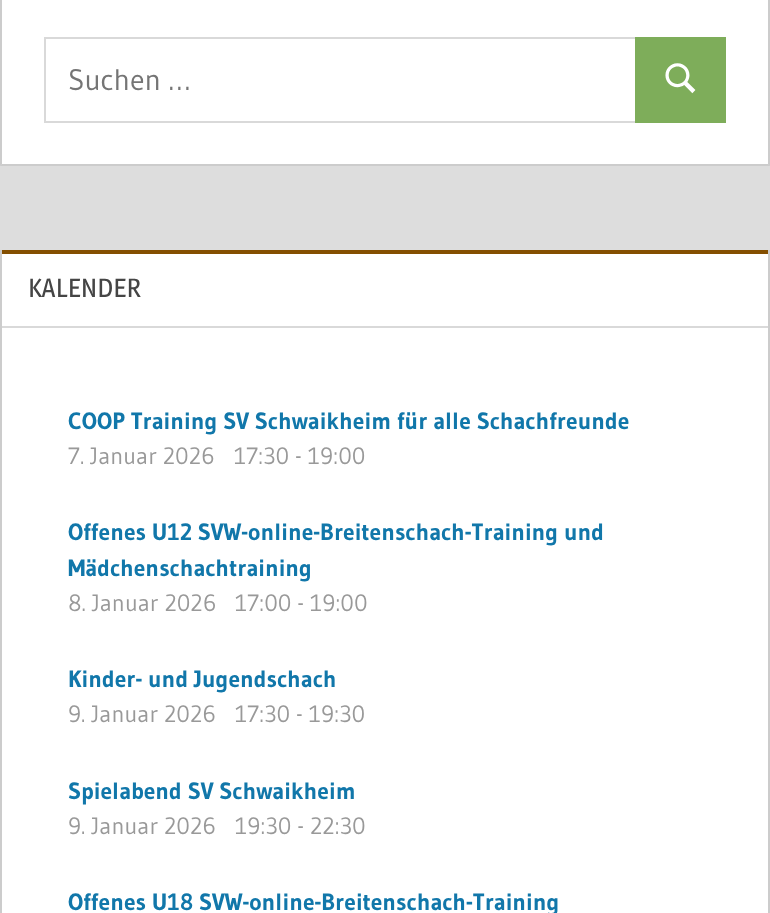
<!DOCTYPE html>
<meta charset="utf-8">
<style>body { margin: 0 } canvas { display: block }</style>
<canvas id="canvas" width="770" height="913"></canvas>
<img id="img1" src="img_01.png" hidden>
<script>
window.onload = function () {
	const canvas = document.getElementById("canvas");
	const ctx = canvas.getContext("2d");
	ctx.miterLimit = 4;
	ctx.fontKerning = "normal";
	function txt(s, x, y) {
		ctx.fillText(s, x, y);
	}
	function fill(x, y, w, h) {
		ctx.fillRect(x, y, w, h);
	}
	function img(id, x, y, w, h) {
		ctx.drawImage(document.getElementById(id), x, y, w, h);
	}

	ctx.fillStyle = "#DDDDDD";
	fill(0, 0, 770, 913);
	ctx.fillStyle = "#FFFFFF";
	fill(0, 0, 770, 166);
	ctx.fillStyle = "#CCCCCC";
	ctx.beginPath();
	ctx.moveTo(770, -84);
	ctx.lineTo(770, 166);
	ctx.lineTo(768, 164);
	ctx.lineTo(768, -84);
	ctx.closePath();
	ctx.fill();
	ctx.fillStyle = "rgba(0, 0, 0, 0.2)";
	ctx.beginPath();
	ctx.moveTo(770, 166);
	ctx.lineTo(0, 166);
	ctx.lineTo(2, 164);
	ctx.lineTo(768, 164);
	ctx.closePath();
	ctx.fill();
	ctx.beginPath();
	ctx.moveTo(0, 166);
	ctx.lineTo(0, -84);
	ctx.lineTo(2, -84);
	ctx.lineTo(2, 164);
	ctx.closePath();
	ctx.fill();
	ctx.strokeStyle = "#D9D9D9";
	ctx.lineWidth = 2;
	ctx.strokeRect(45, 38, 591, 84);
	ctx.fillStyle = "#7EAD5A";
	fill(635, 37, 91, 86);
	img("img1", 665, 63, 31, 31);
	ctx.fillStyle = "#FFFFFF";
	fill(2, 254, 766, 659);
	ctx.fillStyle = "#CCCCCC";
	ctx.beginPath();
	ctx.moveTo(770, 250);
	ctx.lineTo(770, 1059);
	ctx.lineTo(768, 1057);
	ctx.lineTo(768, 250);
	ctx.closePath();
	ctx.fill();
	ctx.beginPath();
	ctx.moveTo(0, 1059);
	ctx.lineTo(0, 250);
	ctx.lineTo(2, 250);
	ctx.lineTo(2, 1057);
	ctx.closePath();
	ctx.fill();
	ctx.fillStyle = "#844F00";
	fill(2, 250, 766, 4);
	ctx.fillStyle = "#D9D9D9";
	fill(2, 326, 766, 2);
	ctx.font = "29.75px Gudea";
	ctx.fillStyle = "#757575";
	txt("Suchen …", 68, 90);
	ctx.font = "26.25px Magra";
	ctx.fillStyle = "#454545";
	txt("KALENDER", 28, 297);
	ctx.font = "bold 23.5px Gudea";
	ctx.fillStyle = "#1177AA";
	txt("COOP Training SV Schwaikheim für alle Schachfreunde", 68, 429);
	ctx.font = "23.5px Gudea";
	ctx.fillStyle = "#999999";
	txt("7. Januar 2026", 68, 464);
	txt("17:30 - 19:00", 234, 464);
	ctx.font = "bold 23.5px Gudea";
	ctx.fillStyle = "#1177AA";
	txt("Offenes U12 SVW-online-Breitenschach-Training und", 68, 540);
	txt("Mädchenschachtraining", 68, 576);
	ctx.font = "23.5px Gudea";
	ctx.fillStyle = "#999999";
	txt("8. Januar 2026", 68, 611);
	txt("17:00 - 19:00", 235, 611);
	ctx.font = "bold 23.5px Gudea";
	ctx.fillStyle = "#1177AA";
	txt("Kinder- und Jugendschach", 68, 687);
	ctx.font = "23.5px Gudea";
	ctx.fillStyle = "#999999";
	txt("9. Januar 2026", 68, 722);
	txt("17:30 - 19:30", 235, 722);
	ctx.font = "bold 23.5px Gudea";
	ctx.fillStyle = "#1177AA";
	txt("Spielabend SV Schwaikheim", 68, 799);
	ctx.font = "23.5px Gudea";
	ctx.fillStyle = "#999999";
	txt("9. Januar 2026", 68, 834);
	txt("19:30 - 22:30", 235, 834);
	ctx.font = "bold 23.5px Gudea";
	ctx.fillStyle = "#1177AA";
	txt("Offenes U18 SVW-online-Breitenschach-Training", 68, 910);
};
</script>
